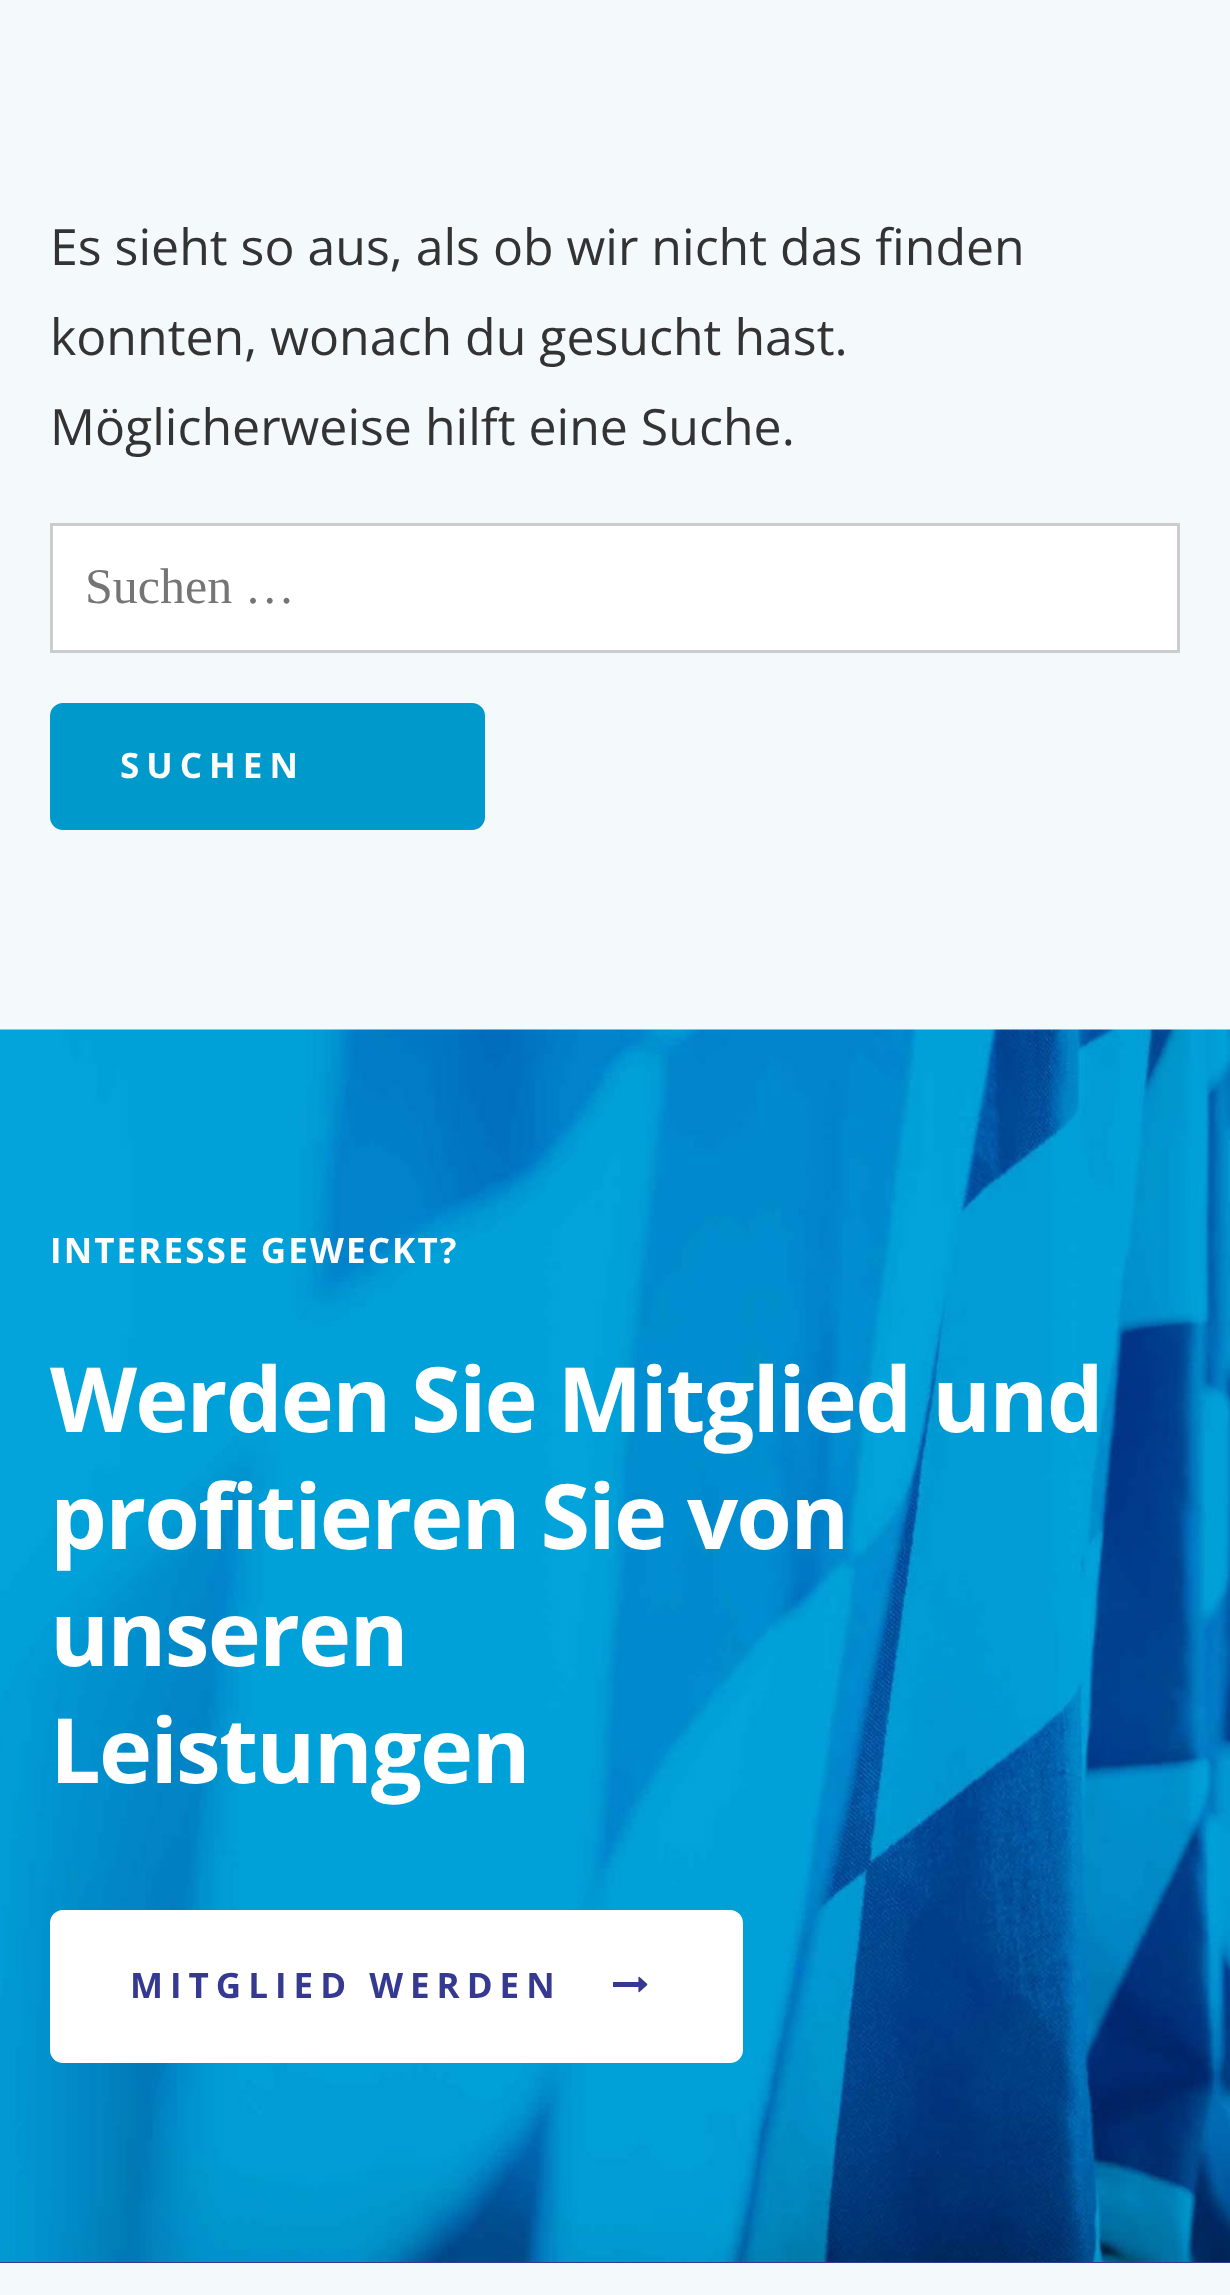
<!DOCTYPE html>
<meta charset="utf-8">
<style>body { margin: 0 } canvas { display: block }</style>
<canvas id="canvas" width="1230" height="2295"></canvas>
<img id="img1" src="img_01.png" hidden>
<img id="img2" src="img_02.png" hidden>
<script>
window.onload = function () {
	const canvas = document.getElementById("canvas");
	const ctx = canvas.getContext("2d");
	ctx.miterLimit = 4;
	ctx.fontKerning = "normal";
	function txt(s, x, y) {
		ctx.fillText(s, x, y);
	}
	function fill(x, y, w, h) {
		ctx.fillRect(x, y, w, h);
	}
	function img(id, x, y, w, h) {
		ctx.drawImage(document.getElementById(id), x, y, w, h);
	}

	ctx.fillStyle = "#F4F9FC";
	fill(0, 0, 1230, 2295);
	ctx.fillStyle = "#FFFFFF";
	ctx.beginPath();
	ctx.rect(51.5, 524.5, 1127, 127);
	ctx.fill();
	ctx.strokeStyle = "#CCCCCC";
	ctx.lineWidth = 3;
	ctx.stroke();
	ctx.fillStyle = "#0099CC";
	ctx.beginPath();
	ctx.roundRect(52.5, 705.5, 430, 122, 10.5);
	ctx.fill();
	ctx.strokeStyle = "#0099CC";
	ctx.lineWidth = 5;
	ctx.stroke();
	ctx.fillStyle = "#353A90";
	fill(0, 2262, 1230, 1);
	img("img1", 0, 1029, 1230, 1233);
	ctx.fillStyle = "#FFFFFF";
	ctx.beginPath();
	ctx.roundRect(52.5, 1912.5, 688, 148, 10.5);
	ctx.fill();
	ctx.strokeStyle = "#FFFFFF";
	ctx.stroke();
	img("img2", 613, 1976, 35, 17);
	ctx.font = "50px Open Sans";
	ctx.fillStyle = "#333333";
	txt("Es sieht so aus, als ob wir nicht das finden", 50, 265);
	txt("konnten, wonach du gesucht hast.", 50, 355);
	txt("Möglicherweise hilft eine Suche.", 50, 445);
	ctx.font = "50px Liberation Serif";
	ctx.fillStyle = "#757575";
	txt("Suchen …", 85, 603);
	ctx.letterSpacing = "7px";
	ctx.font = "bold 35px Open Sans";
	ctx.fillStyle = "#FFFFFF";
	txt("SUCHEN", 120, 778);
	ctx.letterSpacing = "2.1px";
	txt("INTERESSE GEWECKT?", 50, 1263);
	ctx.letterSpacing = "-1.8px";
	ctx.font = "bold 90px Open Sans";
	txt("Werden Sie Mitglied und", 50, 1432);
	txt("profitieren Sie von", 50, 1549);
	txt("unseren", 50, 1666);
	txt("Leistungen", 50, 1783);
	ctx.letterSpacing = "7px";
	ctx.font = "bold 35px Open Sans";
	ctx.fillStyle = "#353A90";
	txt("MITGLIED WERDEN", 130, 1998);
};
</script>
